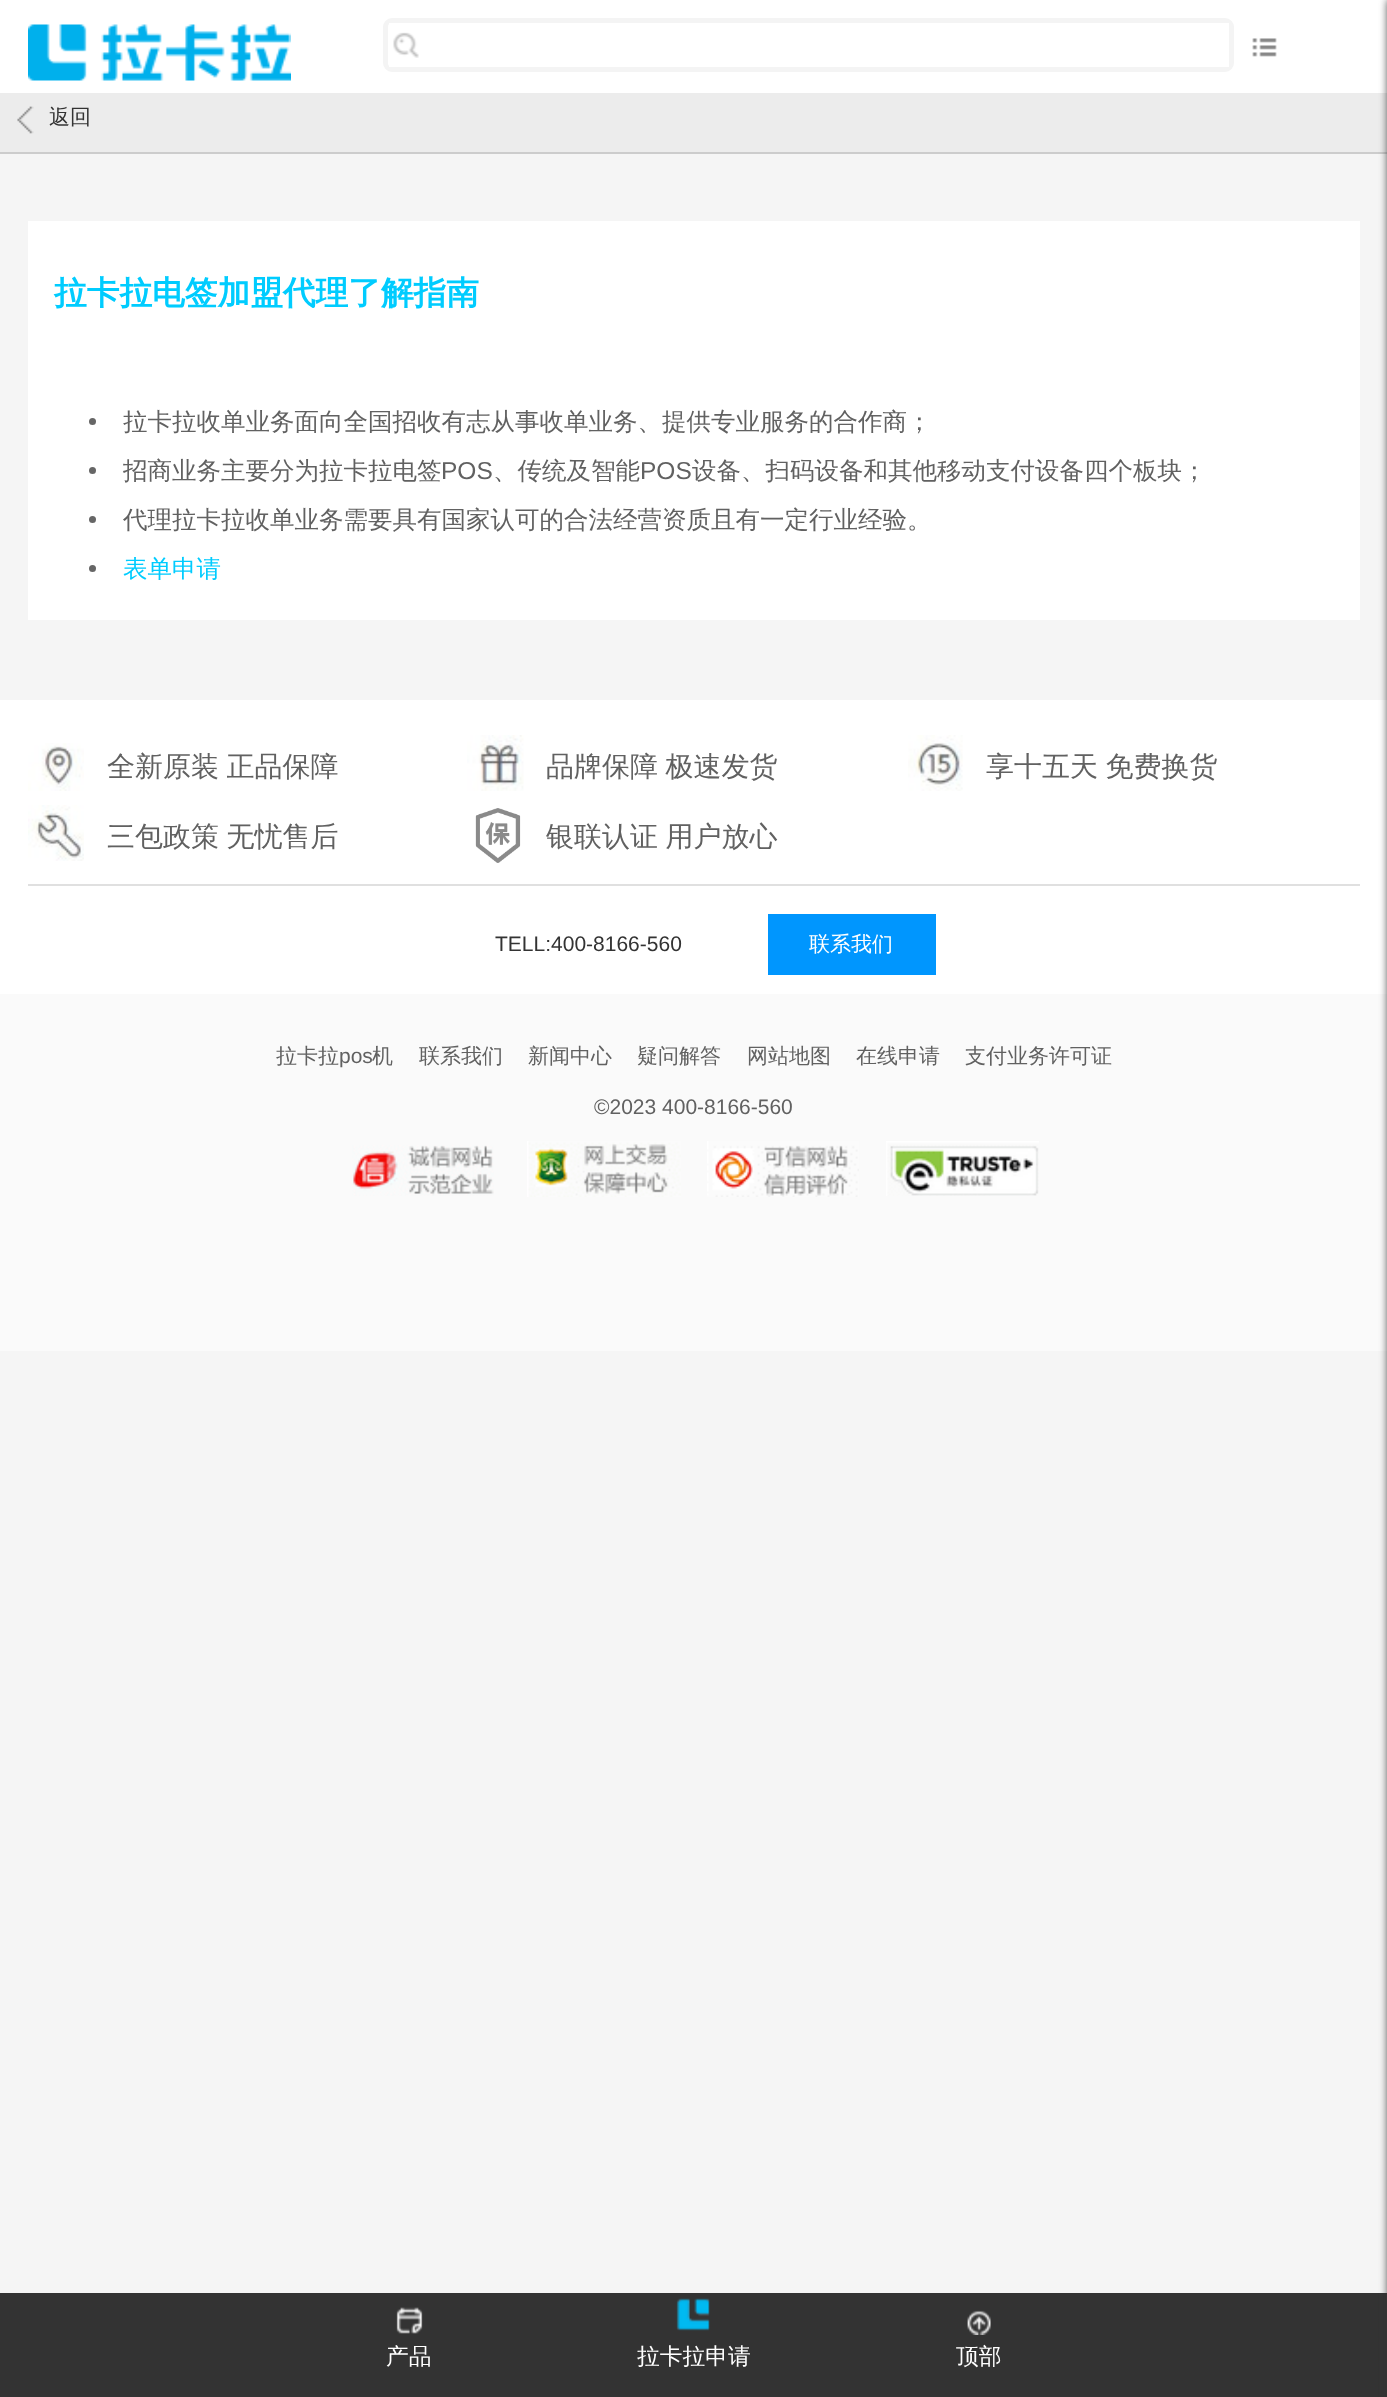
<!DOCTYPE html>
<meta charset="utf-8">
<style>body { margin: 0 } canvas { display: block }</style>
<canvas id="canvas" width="1387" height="2397"></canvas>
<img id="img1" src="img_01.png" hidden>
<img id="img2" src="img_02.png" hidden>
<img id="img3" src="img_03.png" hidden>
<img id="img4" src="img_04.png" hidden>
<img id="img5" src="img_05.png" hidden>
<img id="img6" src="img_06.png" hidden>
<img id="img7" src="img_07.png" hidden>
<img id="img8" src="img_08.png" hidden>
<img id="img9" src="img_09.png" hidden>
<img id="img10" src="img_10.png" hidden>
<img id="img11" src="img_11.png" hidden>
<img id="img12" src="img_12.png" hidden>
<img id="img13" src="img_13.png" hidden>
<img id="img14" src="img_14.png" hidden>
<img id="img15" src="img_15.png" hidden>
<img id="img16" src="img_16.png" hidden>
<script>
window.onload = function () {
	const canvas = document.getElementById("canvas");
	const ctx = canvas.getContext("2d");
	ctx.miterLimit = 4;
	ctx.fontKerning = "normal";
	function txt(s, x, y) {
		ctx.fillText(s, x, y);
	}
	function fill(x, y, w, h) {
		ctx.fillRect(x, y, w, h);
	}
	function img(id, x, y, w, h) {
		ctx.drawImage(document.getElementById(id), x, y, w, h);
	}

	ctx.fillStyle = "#F5F5F5";
	fill(0, 0, 1387, 2397);
	ctx.fillStyle = "#FFFFFF";
	fill(0, 0, 1387, 93);
	img("img1", 28, 24, 263, 57);
	ctx.beginPath();
	ctx.roundRect(385.5, 20.5, 846, 49, 6.5);
	ctx.strokeStyle = "#F4F4F4";
	ctx.lineWidth = 5;
	ctx.stroke();
	fill(389, 23, 840, 44);
	img("img2", 393, 32, 26, 26);
	img("img3", 1252, 38, 25, 19);
	ctx.fillStyle = "#ECECEC";
	fill(0, 93, 1387, 59);
	ctx.fillStyle = "#CCCCCC";
	fill(0, 152, 1387, 2);
	img("img4", 17, 106, 17, 28);
	ctx.fillStyle = "#FFFFFF";
	fill(28, 221, 1332, 399);
	ctx.fillStyle = "#666666";
	ctx.beginPath();
	ctx.arc(92.5, 421.5, 3.5, 0, Math.PI * 2);
	ctx.fill();
	ctx.beginPath();
	ctx.arc(92.5, 470.5, 3.5, 0, Math.PI * 2);
	ctx.fill();
	ctx.beginPath();
	ctx.arc(92.5, 519.5, 3.5, 0, Math.PI * 2);
	ctx.fill();
	ctx.beginPath();
	ctx.arc(92.5, 568.5, 3.5, 0, Math.PI * 2);
	ctx.fill();
	ctx.fillStyle = "#FFFFFF";
	fill(0, 700, 1387, 294);
	ctx.fillStyle = "#E0E0E0";
	fill(28, 884, 1332, 2);
	img("img5", 28, 743, 56, 48);
	img("img6", 467, 735, 57, 56);
	img("img7", 908, 735, 55, 56);
	img("img8", 28, 805, 56, 56);
	img("img9", 475, 808, 46, 55);
	ctx.fillStyle = "#0096FE";
	fill(768, 914, 168, 61);
	ctx.fillStyle = "#FAFAFA";
	fill(0, 994, 1387, 357);
	img("img10", 352, 1145, 142, 51);
	img("img11", 527, 1141, 154, 56);
	img("img12", 707, 1141, 152, 56);
	img("img13", 886, 1141, 153, 55);
	ctx.fillStyle = "#333333";
	fill(0, 2293, 1387, 104);
	img("img14", 396, 2307, 27, 27);
	img("img15", 676, 2298, 34, 33);
	img("img16", 967, 2310, 24, 25);
	ctx.filter = "blur(4.5px)";
	ctx.beginPath();
	ctx.rect(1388, 0, 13, 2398);
	ctx.fill();
	ctx.filter = "none";
	ctx.font = "500 21px WenQuanYi Zen Hei";
	txt("返回", 49, 124);
	ctx.font = "bold 32.7px WenQuanYi Zen Hei";
	ctx.fillStyle = "#00CCFF";
	txt("拉卡拉电签加盟代理了解指南", 54, 304);
	ctx.font = "500 24.5px WenQuanYi Zen Hei";
	ctx.fillStyle = "#616161";
	txt("拉卡拉收单业务面向全国招收有志从事收单业务、提供专业服务的合作商；", 123, 430);
	txt("招商业务主要分为拉卡拉电签", 123, 479);
	ctx.font = "24.5px Liberation Sans";
	txt("POS", 441, 479);
	ctx.font = "500 24.5px WenQuanYi Zen Hei";
	txt("、传统及智能", 493, 479);
	ctx.font = "24.5px Liberation Sans";
	txt("POS", 640, 479);
	ctx.font = "500 24.5px WenQuanYi Zen Hei";
	txt("设备、扫码设备和其他移动支付设备四个板块；", 692, 479);
	txt("代理拉卡拉收单业务需要具有国家认可的合法经营资质且有一定行业经验。", 123, 528);
	ctx.fillStyle = "#00CCFF";
	txt("表单申请", 123, 577);
	ctx.wordSpacing = "-1px";
	ctx.font = "500 28px WenQuanYi Zen Hei";
	ctx.fillStyle = "#616161";
	txt("全新原装 正品保障", 107, 776);
	txt("品牌保障 极速发货", 546, 776);
	txt("享十五天 免费换货", 986, 776);
	txt("三包政策 无忧售后", 107, 846);
	txt("银联认证 用户放心", 546, 846);
	ctx.wordSpacing = "0px";
	ctx.font = "21px Liberation Sans";
	ctx.fillStyle = "#333333";
	txt("TELL:400-8166-560", 495, 951);
	ctx.font = "500 21px WenQuanYi Zen Hei";
	ctx.fillStyle = "#FFFFFF";
	txt("联系我们", 809, 951);
	ctx.fillStyle = "#616161";
	txt("拉卡拉", 276, 1063);
	ctx.font = "21px Liberation Sans";
	txt("pos", 339, 1063);
	ctx.font = "500 21px WenQuanYi Zen Hei";
	txt("机", 372, 1063);
	txt("联系我们", 419, 1063);
	txt("新闻中心", 528, 1063);
	txt("疑问解答", 637, 1063);
	txt("网站地图", 747, 1063);
	txt("在线申请", 856, 1063);
	txt("支付业务许可证", 965, 1063);
	ctx.font = "21px Liberation Sans";
	txt("©2023 400-8166-560", 594, 1114);
	ctx.font = "500 22.75px WenQuanYi Zen Hei";
	ctx.fillStyle = "#FFFFFF";
	txt("产品", 386, 2364);
	txt("拉卡拉申请", 637, 2364);
	txt("顶部", 956, 2364);
};
</script>
